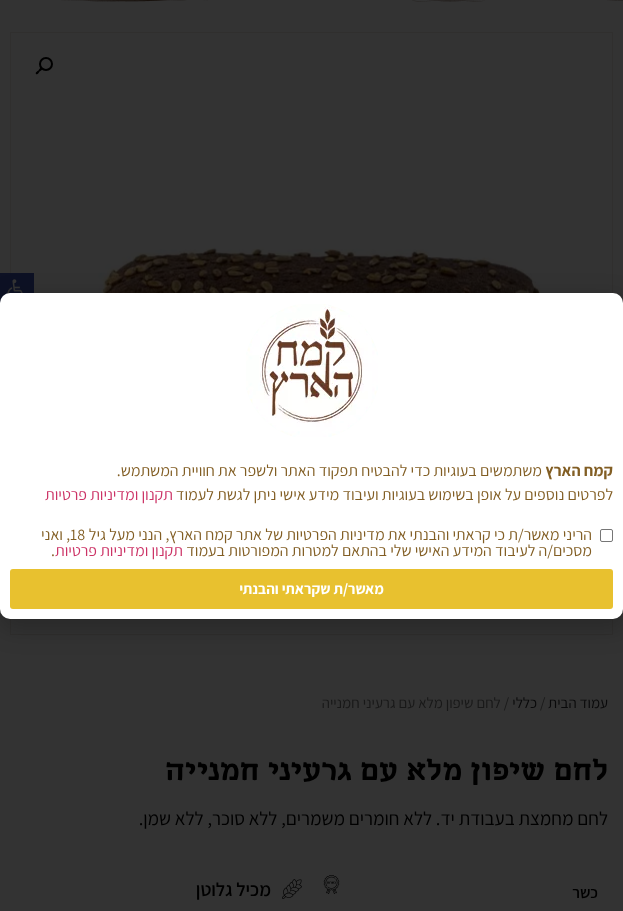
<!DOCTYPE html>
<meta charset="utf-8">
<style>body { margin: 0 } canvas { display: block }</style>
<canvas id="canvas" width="623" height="911"></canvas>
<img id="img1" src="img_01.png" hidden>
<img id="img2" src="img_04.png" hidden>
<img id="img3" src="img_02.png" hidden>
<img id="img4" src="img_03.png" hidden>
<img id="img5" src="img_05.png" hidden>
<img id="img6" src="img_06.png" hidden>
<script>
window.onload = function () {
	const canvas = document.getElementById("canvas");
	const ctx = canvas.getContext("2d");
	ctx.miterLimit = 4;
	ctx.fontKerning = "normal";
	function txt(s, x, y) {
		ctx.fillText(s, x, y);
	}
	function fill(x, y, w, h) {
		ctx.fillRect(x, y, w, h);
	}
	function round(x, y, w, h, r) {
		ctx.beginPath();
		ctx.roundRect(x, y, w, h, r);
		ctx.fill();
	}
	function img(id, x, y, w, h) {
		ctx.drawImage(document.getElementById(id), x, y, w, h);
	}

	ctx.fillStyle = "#333333";
	fill(0, 0, 623, 911);
	ctx.strokeStyle = "#302F2E";
	ctx.strokeRect(10.5, 32.5, 602, 602);
	ctx.fillStyle = "#0D1124";
	fill(0, 273, 34, 30);
	img("img1", 7, 279, 16, 15);
	img("img2", 84, 247, 465, 46);
	ctx.fillStyle = "rgba(0, 0, 0, 0.2)";
	ctx.filter = "blur(11.5px)";
	ctx.beginPath();
	ctx.roundRect(-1, 298, 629, 332, 13);
	ctx.fill();
	ctx.filter = "none";
	ctx.fillStyle = "#FFFFFF";
	round(0, 293, 623, 326, 10);
	img("img3", 246, 304, 132, 133);
	ctx.beginPath();
	ctx.roundRect(600.5, 529.5, 12, 12, 1.5);
	ctx.strokeStyle = "#767676";
	ctx.stroke();
	ctx.fillStyle = "#E8C12F";
	round(10, 569, 603, 40, 3);
	ctx.fillStyle = "#150E09";
	fill(61, 0, 562, 2);
	img("img4", 0, 0, 623, 2);
	ctx.beginPath();
	ctx.arc(46, 64, 6, 0, Math.PI * 2);
	ctx.strokeStyle = "#000000";
	ctx.lineWidth = 2;
	ctx.stroke();
	ctx.fillStyle = "#000000";
	ctx.beginPath();
	ctx.moveTo(42, 68);
	ctx.bezierCurveTo(43, 69.5, 40.5, 71, 39.5, 71.5);
	ctx.bezierCurveTo(39, 72.5, 37.5, 75, 36, 74);
	ctx.bezierCurveTo(35, 72.5, 37.5, 71, 38.5, 70.5);
	ctx.bezierCurveTo(39, 69.5, 40.5, 67, 42, 68);
	ctx.closePath();
	ctx.fill();
	img("img5", 323, 875, 17, 19);
	img("img6", 282, 879, 20, 20);
	ctx.direction = "rtl";
	ctx.font = "bold 16px Assistant";
	ctx.fillStyle = "#825E24";
	txt("קמח הארץ", 613, 476);
	ctx.font = "16px Assistant";
	txt("משתמשים בעוגיות כדי להבטיח תפקוד האתר ולשפר את חוויית המשתמש.", 542, 476);
	txt("לפרטים נוספים על אופן בשימוש בעוגיות ועיבוד מידע אישי ניתן לגשת לעמוד", 613, 500);
	ctx.fillStyle = "#CC3366";
	txt("תקנון ומדיניות פרטיות", 173, 500);
	ctx.fillStyle = "#825E24";
	txt("הריני מאשר/ת כי קראתי והבנתי את מדיניות הפרטיות של אתר קמח הארץ, הנני מעל גיל", 592, 540);
	ctx.direction = "ltr";
	txt("18", 70, 540);
	ctx.direction = "rtl";
	txt(", ואני", 70, 540);
	txt("מסכים/ה לעיבוד המידע האישי שלי בהתאם למטרות המפורטות בעמוד", 592, 556);
	ctx.fillStyle = "#CC3366";
	txt("תקנון ומדיניות פרטיות", 183, 556);
	ctx.direction = "ltr";
	ctx.fillStyle = "#825E24";
	txt(".", 51, 556);
	ctx.direction = "rtl";
	ctx.font = "bold 15px Assistant";
	ctx.fillStyle = "#FFFFFF";
	txt("מאשר/ת שקראתי והבנתי", 384, 594);
	ctx.font = "15px Assistant";
	ctx.fillStyle = "#09090A";
	txt("עמוד הבית", 608, 708);
	ctx.direction = "ltr";
	ctx.fillStyle = "#181818";
	txt("/", 540, 708);
	ctx.direction = "rtl";
	ctx.fillStyle = "#09090A";
	txt("כללי", 537, 708);
	ctx.fillStyle = "#181818";
	txt("/ לחם שיפון מלא עם גרעיני חמנייה", 509, 708);
	ctx.font = "bold 28px 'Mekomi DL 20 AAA'";
	ctx.fillStyle = "#000000";
	txt("לחם שיפון מלא עם גרעיני חמנייה", 608, 780);
	ctx.font = "19px Assistant";
	txt("לחם מחמצת בעבודת יד. ללא חומרים משמרים, ללא סוכר, ללא שמן.", 608, 825);
	ctx.font = "600 16px Assistant";
	txt("כשר", 598, 898);
	ctx.font = "600 19px Assistant";
	txt("מכיל גלוטן", 271, 896);
};
</script>
